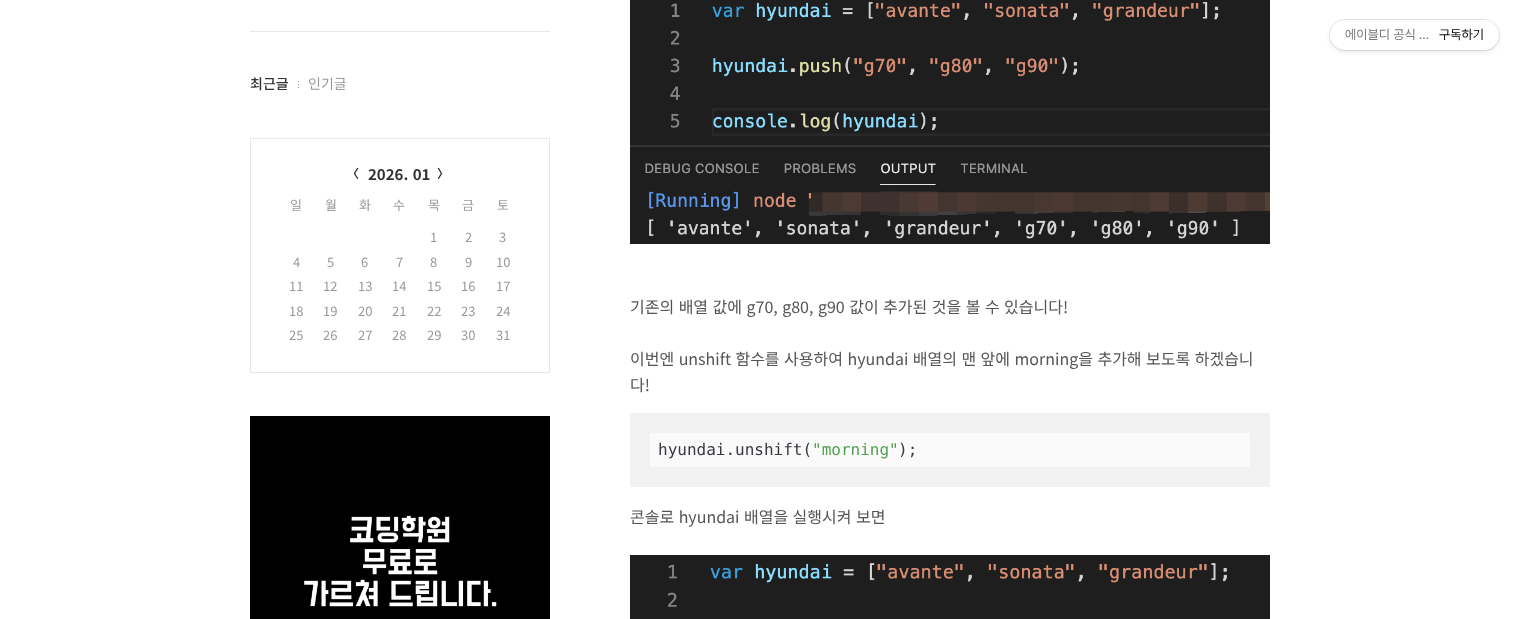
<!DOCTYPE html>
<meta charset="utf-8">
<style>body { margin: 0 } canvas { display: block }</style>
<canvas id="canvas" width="1519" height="619"></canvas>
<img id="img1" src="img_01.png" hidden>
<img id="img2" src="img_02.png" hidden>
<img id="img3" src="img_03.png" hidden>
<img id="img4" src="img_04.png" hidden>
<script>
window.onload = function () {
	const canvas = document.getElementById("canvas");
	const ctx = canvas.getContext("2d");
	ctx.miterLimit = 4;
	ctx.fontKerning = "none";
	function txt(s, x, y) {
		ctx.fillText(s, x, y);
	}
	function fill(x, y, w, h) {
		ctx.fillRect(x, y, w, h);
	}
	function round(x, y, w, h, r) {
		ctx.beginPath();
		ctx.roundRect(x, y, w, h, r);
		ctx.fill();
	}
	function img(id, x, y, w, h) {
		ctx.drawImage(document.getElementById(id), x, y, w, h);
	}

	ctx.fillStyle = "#FFFFFF";
	fill(0, 0, 1519, 619);
	ctx.fillStyle = "rgba(0, 0, 0, 0.1)";
	ctx.filter = "blur(2.5px)";
	ctx.beginPath();
	ctx.roundRect(1330, 22, 169, 30, 15);
	ctx.fill();
	ctx.filter = "none";
	ctx.beginPath();
	ctx.roundRect(1329.5, 19.5, 170, 31, 15.5);
	ctx.strokeStyle = "rgba(0, 0, 0, 0.1)";
	ctx.stroke();
	ctx.fillStyle = "#FFFFFF";
	round(1330, 20, 169, 30, 15);
	ctx.fillStyle = "#E8E8E8";
	fill(250, 31, 300, 1);
	img("img1", 298, 81, 1, 7);
	ctx.strokeStyle = "#E8E8E8";
	ctx.strokeRect(250.5, 138.5, 299, 234);
	img("img2", 250, 416, 300, 203);
	img("img3", 630, 0, 640, 244);
	ctx.fillStyle = "#F2F2F2";
	fill(630, 413, 640, 74);
	ctx.fillStyle = "#FAFAFA";
	fill(650, 433, 600, 34);
	img("img4", 630, 555, 640, 64);
	ctx.font = "13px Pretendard";
	ctx.fillStyle = "#777777";
	txt("에이블디 공식 …", 1345, 39);
	ctx.fillStyle = "#000000";
	txt("구독하기", 1439, 39);
	ctx.font = "500 14px Noto Sans KR";
	ctx.fillStyle = "#333333";
	txt("최근글", 250, 89);
	ctx.font = "14px Noto Sans KR";
	ctx.fillStyle = "#999999";
	txt("인기글", 308, 89);
	ctx.font = "bold 12px Noto Sans KR";
	ctx.fillStyle = "#333333";
	txt("〈", 347, 178);
	ctx.wordSpacing = "1px";
	ctx.font = "bold 15px Noto Sans KR";
	txt("2026. 01", 368, 180);
	ctx.wordSpacing = "0px";
	ctx.font = "bold 12px Noto Sans KR";
	txt("〉", 437, 178);
	ctx.font = "13px Noto Sans KR";
	ctx.fillStyle = "#999999";
	txt("일", 290, 210);
	txt("월", 325, 210);
	txt("화", 359, 210);
	txt("수", 393, 210);
	txt("목", 428, 210);
	txt("금", 462, 210);
	txt("토", 497, 210);
	txt("1", 430, 242);
	txt("2", 465, 242);
	txt("3", 499, 242);
	txt("4", 293, 267);
	txt("5", 327, 267);
	txt("6", 361, 267);
	txt("7", 396, 267);
	txt("8", 430, 267);
	txt("9", 465, 267);
	txt("10", 496, 267);
	txt("11", 289, 291);
	txt("12", 323, 291);
	txt("13", 358, 291);
	txt("14", 392, 291);
	txt("15", 427, 291);
	txt("16", 461, 291);
	txt("17", 496, 291);
	txt("18", 289, 316);
	txt("19", 323, 316);
	txt("20", 358, 316);
	txt("21", 392, 316);
	txt("22", 427, 316);
	txt("23", 461, 316);
	txt("24", 496, 316);
	txt("25", 289, 340);
	txt("26", 323, 340);
	txt("27", 358, 340);
	txt("28", 392, 340);
	txt("29", 427, 340);
	txt("30", 461, 340);
	txt("31", 496, 340);
	ctx.wordSpacing = "0.9px";
	ctx.font = "16px Noto Sans KR";
	ctx.fillStyle = "#555555";
	txt("기존의 배열 값에 g70, g80, g90 값이 추가된 것을 볼 수 있습니다!", 630, 313);
	txt("이번엔 unshift 함수를 사용하여 hyundai 배열의 맨 앞에 morning을 추가해 보도록 하겠습니", 630, 365);
	ctx.wordSpacing = "0px";
	txt("다!", 630, 391);
	ctx.font = "16px DejaVu Sans Mono";
	ctx.fillStyle = "#383A42";
	txt("hyundai.unshift(", 658, 455);
	ctx.fillStyle = "#50A14F";
	txt("\"morning\"", 812, 455);
	ctx.fillStyle = "#383A42";
	txt(");", 898, 455);
	ctx.wordSpacing = "0.9px";
	ctx.font = "16px Noto Sans KR";
	ctx.fillStyle = "#555555";
	txt("콘솔로 hyundai 배열을 실행시켜 보면", 630, 523);
};
</script>
